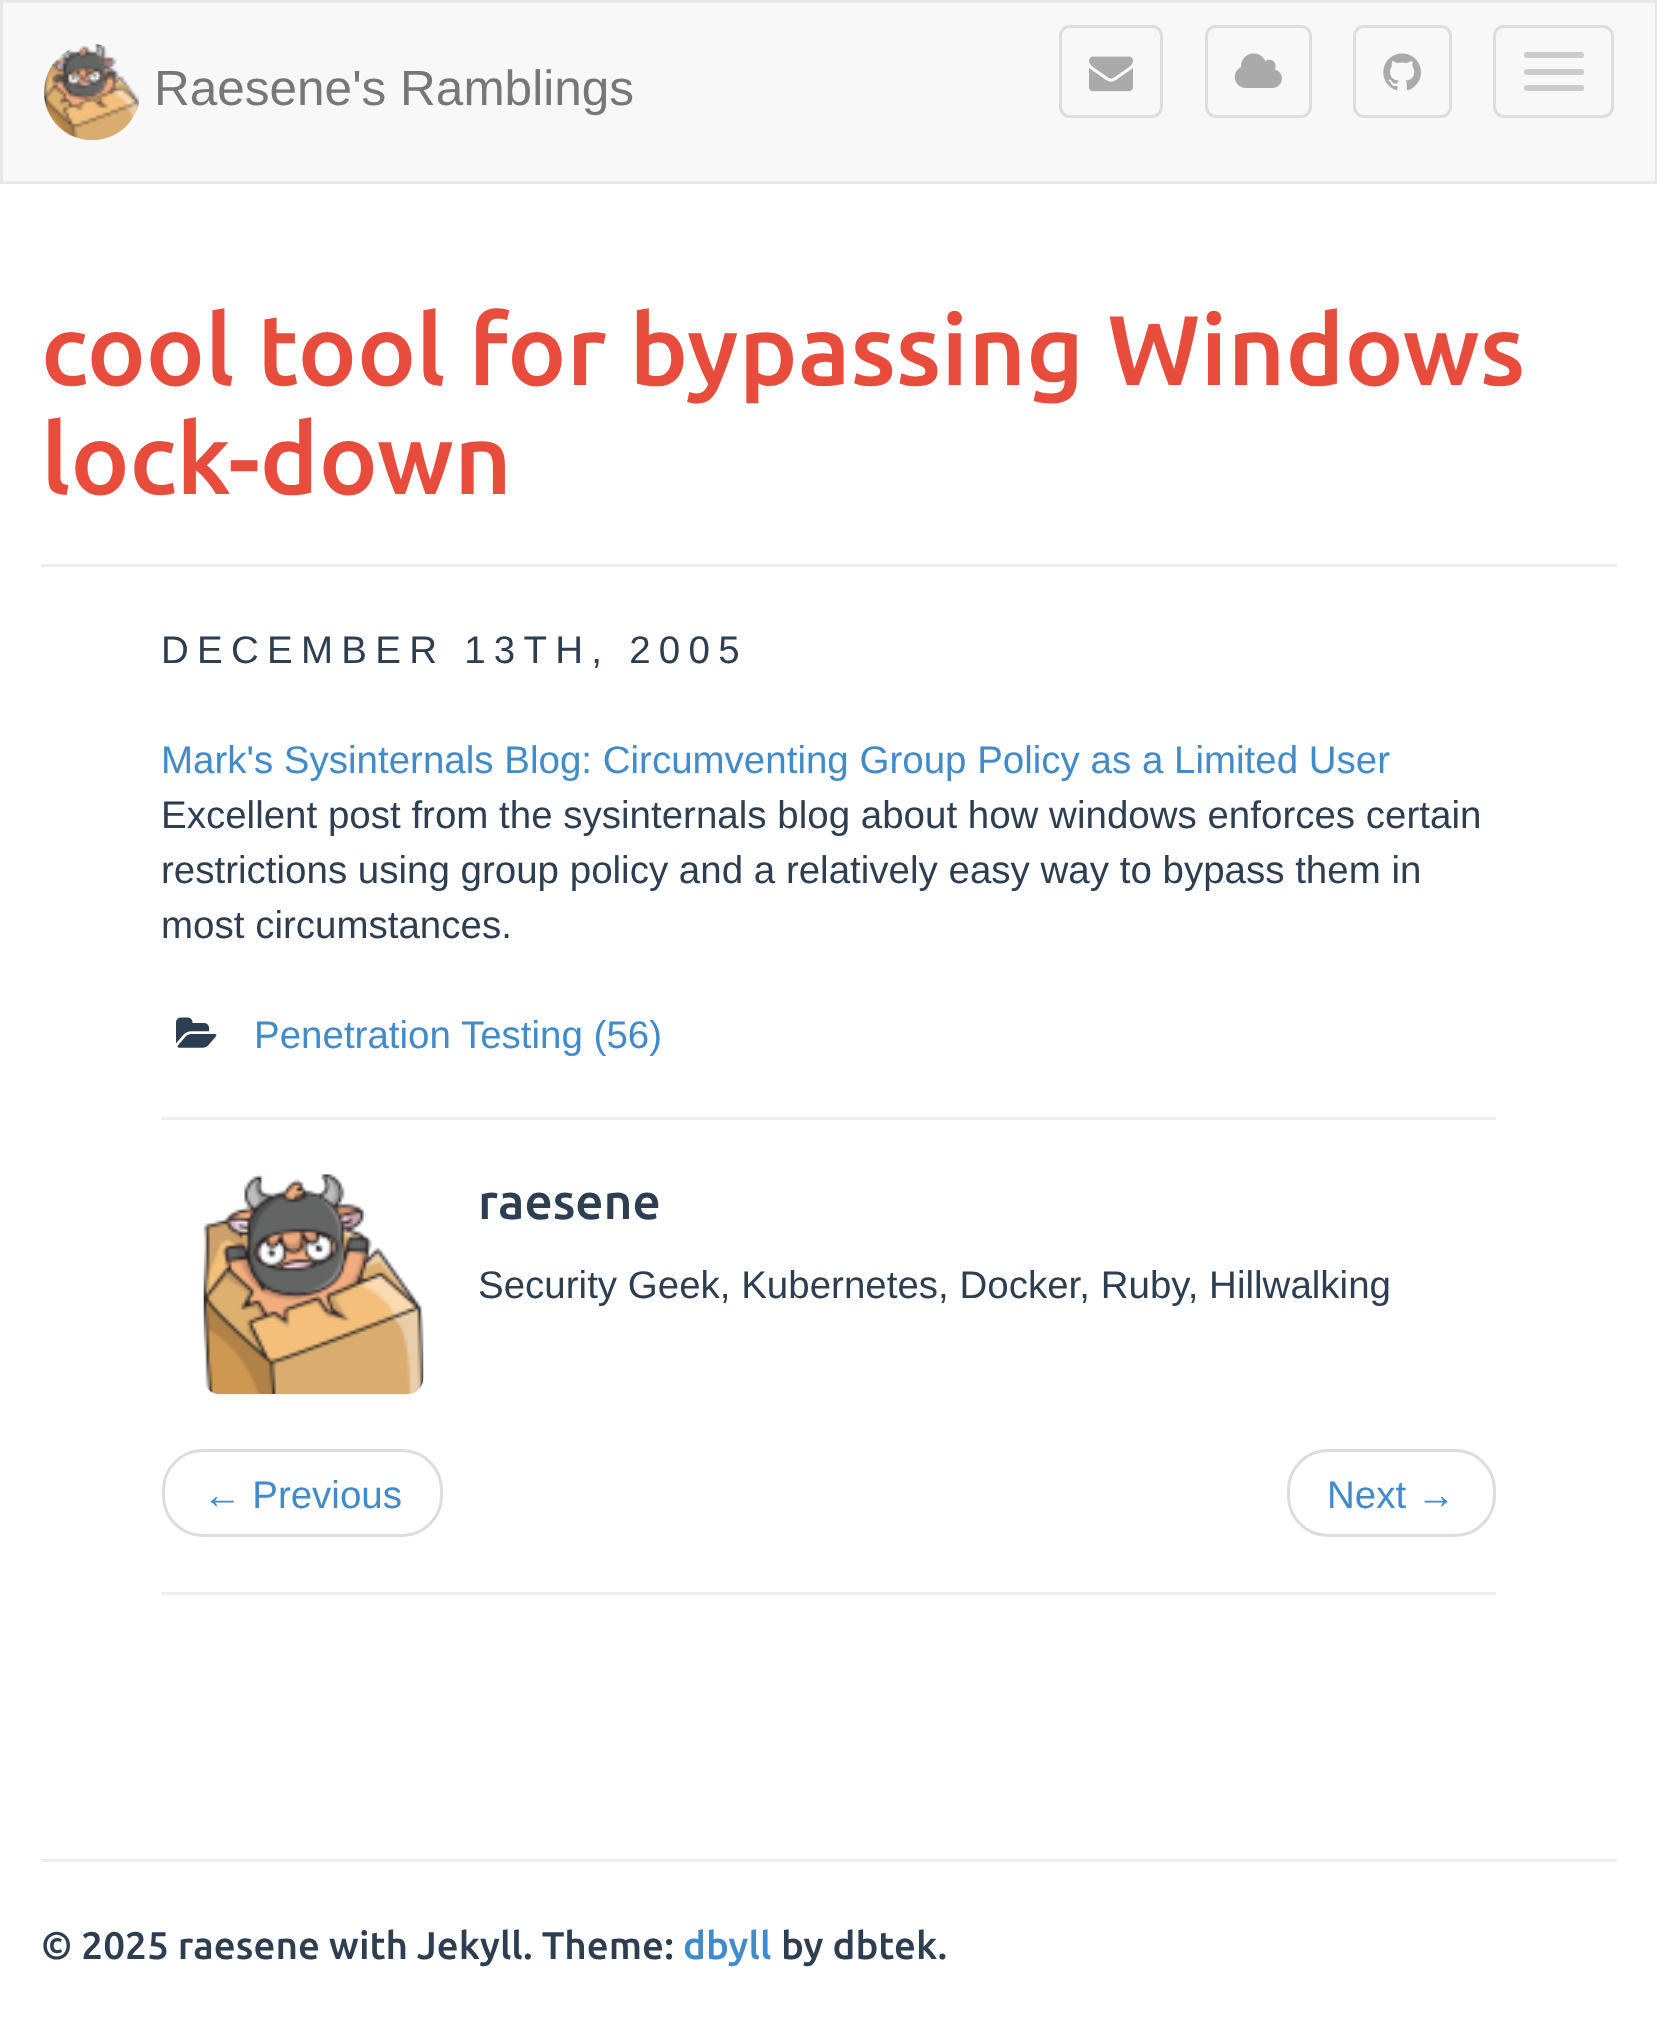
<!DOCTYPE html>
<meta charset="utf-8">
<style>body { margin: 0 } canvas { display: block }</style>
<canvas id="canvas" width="1657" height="2039"></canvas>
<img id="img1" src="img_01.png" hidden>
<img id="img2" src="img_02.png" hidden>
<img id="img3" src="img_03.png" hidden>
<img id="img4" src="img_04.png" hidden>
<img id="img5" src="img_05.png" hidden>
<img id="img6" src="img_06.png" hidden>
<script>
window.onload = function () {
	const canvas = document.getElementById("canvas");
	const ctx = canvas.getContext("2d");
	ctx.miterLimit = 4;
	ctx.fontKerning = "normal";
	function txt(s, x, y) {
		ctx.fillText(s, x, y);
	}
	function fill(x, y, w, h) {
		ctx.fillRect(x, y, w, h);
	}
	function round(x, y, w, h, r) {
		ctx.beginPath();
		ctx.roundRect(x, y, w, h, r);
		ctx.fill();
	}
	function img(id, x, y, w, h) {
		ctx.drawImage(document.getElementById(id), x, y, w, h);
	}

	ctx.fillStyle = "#FFFFFF";
	fill(0, 0, 1657, 2039);
	ctx.fillStyle = "#F8F8F8";
	ctx.beginPath();
	ctx.rect(1.5, 1.5, 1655, 181);
	ctx.fill();
	ctx.strokeStyle = "#E7E7E7";
	ctx.lineWidth = 3;
	ctx.stroke();
	img("img1", 44, 44, 96, 97);
	ctx.beginPath();
	ctx.roundRect(1060.5, 26.5, 101, 90, 9.5);
	ctx.strokeStyle = "#DDDDDD";
	ctx.stroke();
	img("img2", 1089, 56, 44, 36);
	ctx.beginPath();
	ctx.roundRect(1206.5, 26.5, 104, 90, 9.5);
	ctx.stroke();
	img("img3", 1234, 53, 48, 35);
	ctx.beginPath();
	ctx.roundRect(1354.5, 26.5, 96, 90, 9.5);
	ctx.stroke();
	img("img4", 1383, 53, 38, 38);
	ctx.beginPath();
	ctx.roundRect(1494.5, 26.5, 118, 90, 9.5);
	ctx.stroke();
	ctx.fillStyle = "#CCCCCC";
	round(1524, 52, 60, 6, 3);
	round(1524, 69, 60, 6, 3);
	round(1524, 85, 60, 6, 3);
	ctx.fillStyle = "#EEEEEE";
	fill(41, 564, 1576, 3);
	img("img5", 176, 1017, 41, 31);
	fill(162, 1117, 1334, 3);
	img("img6", 203, 1174, 221, 221);
	ctx.beginPath();
	ctx.roundRect(163.5, 1450.5, 278, 85, 39.5);
	ctx.stroke();
	ctx.beginPath();
	ctx.roundRect(1288.5, 1450.5, 206, 85, 39.5);
	ctx.stroke();
	fill(162, 1592, 1334, 3);
	fill(41, 1859, 1576, 3);
	ctx.font = "49.5px Liberation Sans";
	ctx.fillStyle = "#777777";
	txt("Raesene's Ramblings", 154, 105);
	ctx.font = "500 99px Ubuntu";
	ctx.fillStyle = "#E74C3C";
	txt("cool tool for bypassing Windows", 41, 385);
	txt("lock-down", 41, 494);
	ctx.letterSpacing = "8.25px";
	ctx.font = "38.5px Liberation Sans";
	ctx.fillStyle = "#2C3E50";
	txt("DECEMBER 13TH, 2005", 161, 663);
	ctx.letterSpacing = "0px";
	ctx.fillStyle = "#428BCA";
	txt("Mark's Sysinternals Blog: Circumventing Group Policy as a Limited User", 161, 773);
	ctx.fillStyle = "#2C3E50";
	txt("Excellent post from the sysinternals blog about how windows enforces certain", 161, 828);
	txt("restrictions using group policy and a relatively easy way to bypass them in", 161, 883);
	txt("most circumstances.", 161, 938);
	ctx.fillStyle = "#428BCA";
	txt("Penetration Testing (56)", 254, 1048);
	ctx.font = "500 49.5px Ubuntu";
	ctx.fillStyle = "#2C3E50";
	txt("raesene", 478, 1219);
	ctx.font = "38.5px Liberation Sans";
	txt("Security Geek, Kubernetes, Docker, Ruby, Hillwalking", 478, 1298);
	ctx.fillStyle = "#428BCA";
	txt("← Previous", 203, 1508);
	txt("Next →", 1327, 1508);
	ctx.font = "500 38.5px Ubuntu";
	ctx.fillStyle = "#2C3E50";
	txt("© 2025 raesene with Jekyll. Theme:", 41, 1959);
	ctx.fillStyle = "#428BCA";
	txt("dbyll", 683, 1959);
	ctx.fillStyle = "#2C3E50";
	txt("by dbtek.", 781, 1959);
};
</script>
